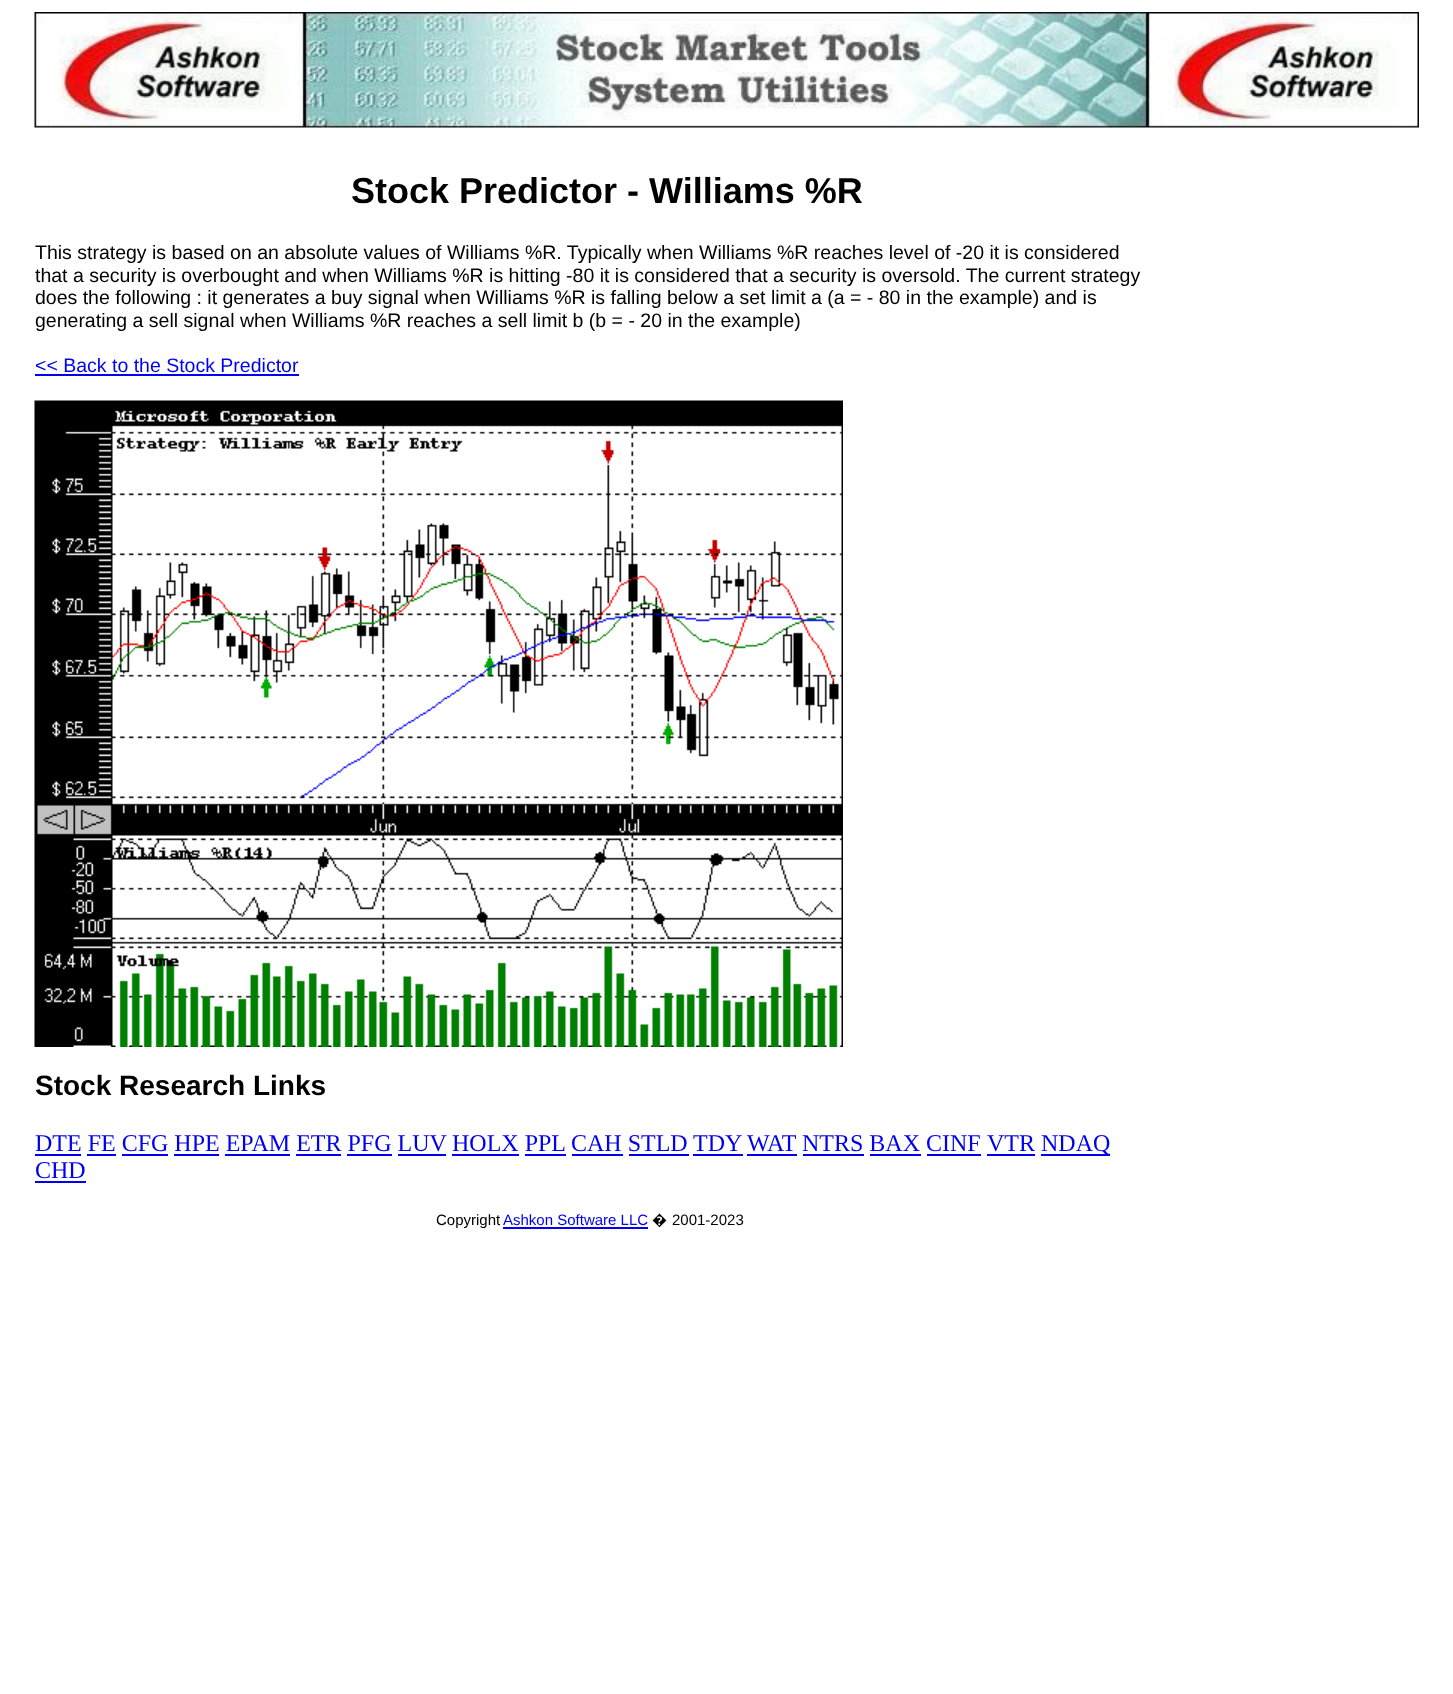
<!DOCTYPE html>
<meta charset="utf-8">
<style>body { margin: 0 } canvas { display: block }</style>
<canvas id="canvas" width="1453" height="1694"></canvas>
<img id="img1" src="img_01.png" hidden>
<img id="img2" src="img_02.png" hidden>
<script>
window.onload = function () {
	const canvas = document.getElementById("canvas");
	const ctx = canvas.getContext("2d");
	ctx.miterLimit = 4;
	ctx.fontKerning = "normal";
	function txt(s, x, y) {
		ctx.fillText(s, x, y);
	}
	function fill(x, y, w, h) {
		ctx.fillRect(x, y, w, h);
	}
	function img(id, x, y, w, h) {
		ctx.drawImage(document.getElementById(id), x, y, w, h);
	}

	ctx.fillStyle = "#FFFFFF";
	fill(0, 0, 1453, 1694);
	img("img1", 34, 12, 1385, 116);
	ctx.fillStyle = "#0000EE";
	fill(35, 374, 264, 2);
	img("img2", 34, 400, 809, 647);
	fill(35, 1154, 46, 2);
	fill(452, 1154, 67, 2);
	fill(572, 1154, 51, 2);
	fill(693, 1154, 50, 2);
	fill(747, 1154, 50, 2);
	fill(803, 1154, 61, 2);
	fill(987, 1154, 48, 2);
	fill(1041, 1154, 69, 2);
	fill(87, 1154, 29, 2);
	fill(122, 1154, 46, 2);
	fill(174, 1154, 45, 2);
	fill(225, 1154, 65, 2);
	fill(296, 1154, 45, 2);
	fill(347, 1154, 45, 2);
	fill(398, 1154, 48, 2);
	fill(525, 1154, 41, 2);
	fill(629, 1154, 60, 2);
	fill(870, 1154, 51, 2);
	fill(927, 1154, 54, 2);
	fill(35, 1181, 51, 2);
	fill(503, 1227, 145, 2);
	ctx.font = "bold 36px Liberation Sans";
	ctx.fillStyle = "#000000";
	txt("Stock Predictor - Williams %R", 351, 203);
	ctx.font = "19.5px Liberation Sans";
	txt("This strategy is based on an absolute values of Williams %R. Typically when Williams %R reaches level of -20 it is considered", 35, 259);
	txt("that a security is overbought and when Williams %R is hitting -80 it is considered that a security is oversold. The current strategy", 35, 282);
	txt("does the following : it generates a buy signal when Williams %R is falling below a set limit a (a = - 80 in the example) and is", 35, 304);
	txt("generating a sell signal when Williams %R reaches a sell limit b (b = - 20 in the example)", 35, 327);
	ctx.fillStyle = "#0000EE";
	txt("<< Back to the Stock Predictor", 35, 372);
	ctx.font = "bold 28px Liberation Sans";
	ctx.fillStyle = "#000000";
	txt("Stock Research Links", 35, 1095);
	ctx.font = "24px Liberation Serif";
	ctx.fillStyle = "#0000EE";
	txt("DTE FE CFG HPE EPAM ETR PFG LUV", 35, 1151);
	txt("HOLX PPL", 452, 1151);
	txt("CAH STLD", 571, 1151);
	txt("TDY", 693, 1151);
	txt("WAT", 747, 1151);
	txt("NTRS BAX CINF", 802, 1151);
	txt("VTR", 987, 1151);
	txt("NDAQ", 1041, 1151);
	txt("CHD", 35, 1178);
	ctx.font = "15px Liberation Sans";
	ctx.fillStyle = "#000000";
	txt("Copyright", 436, 1225);
	ctx.fillStyle = "#0000EE";
	txt("Ashkon Software LLC", 503, 1225);
	ctx.font = "15px Noto Sans";
	ctx.fillStyle = "#000000";
	txt("�", 652, 1225);
	ctx.font = "15px Liberation Sans";
	txt("2001-2023", 672, 1225);
};
</script>
